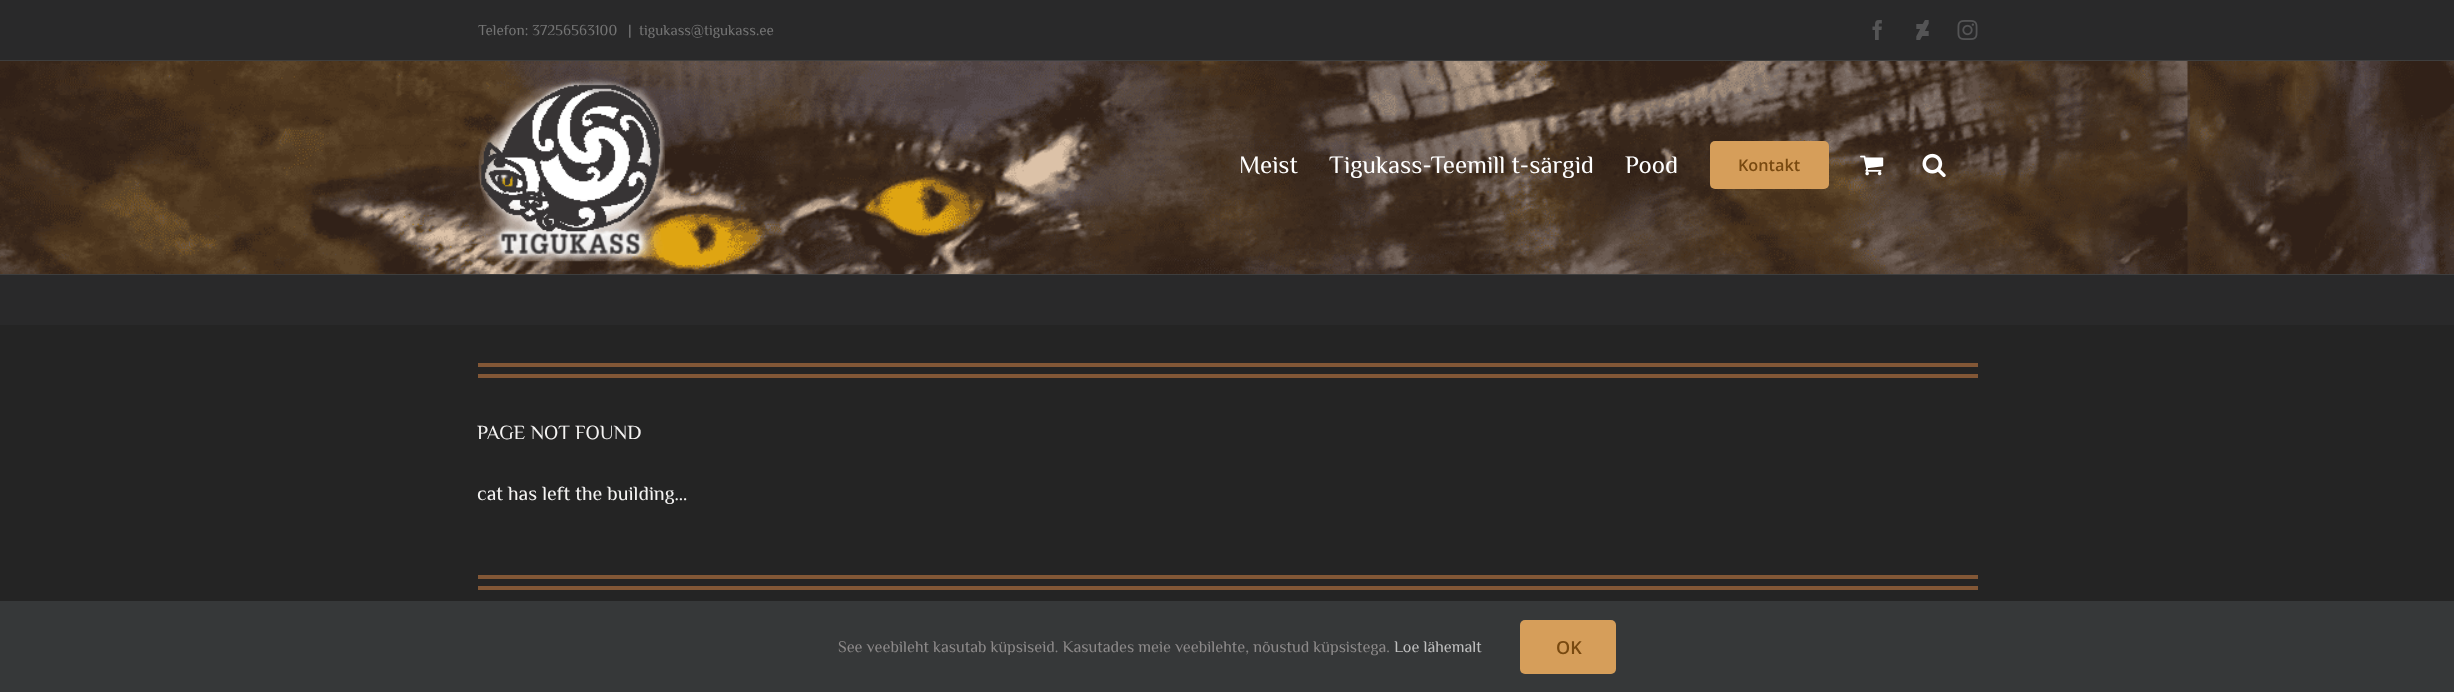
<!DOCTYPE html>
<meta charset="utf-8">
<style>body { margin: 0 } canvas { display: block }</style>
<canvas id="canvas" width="2454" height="692"></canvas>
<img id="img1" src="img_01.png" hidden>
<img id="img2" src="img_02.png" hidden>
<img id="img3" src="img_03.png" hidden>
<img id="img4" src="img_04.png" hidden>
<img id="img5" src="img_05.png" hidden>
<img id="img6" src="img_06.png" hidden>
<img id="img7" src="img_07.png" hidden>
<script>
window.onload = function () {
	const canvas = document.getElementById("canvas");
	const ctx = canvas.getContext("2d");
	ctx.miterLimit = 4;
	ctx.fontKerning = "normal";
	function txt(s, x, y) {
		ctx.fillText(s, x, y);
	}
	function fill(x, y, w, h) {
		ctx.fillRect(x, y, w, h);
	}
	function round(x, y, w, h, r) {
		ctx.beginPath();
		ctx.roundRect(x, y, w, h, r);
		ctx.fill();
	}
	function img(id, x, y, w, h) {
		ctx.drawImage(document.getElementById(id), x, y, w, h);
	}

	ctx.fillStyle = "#29292A";
	fill(0, 0, 2454, 692);
	ctx.fillStyle = "#3E3E3E";
	fill(0, 60, 2454, 1);
	img("img1", 1872, 20, 10, 20);
	img("img2", 1916, 20, 13, 20);
	img("img3", 1957, 20, 21, 20);
	img("img4", 0, 61, 2454, 213);
	fill(0, 274, 2454, 1);
	img("img5", 478, 76, 187, 186);
	ctx.fillStyle = "#D69E5A";
	round(1710, 141, 119, 48, 5);
	img("img6", 1860, 155, 24, 21);
	img("img7", 1922, 153, 24, 25);
	ctx.fillStyle = "#242424";
	fill(0, 325, 2454, 276);
	ctx.fillStyle = "#825736";
	fill(478, 363, 1500, 4);
	fill(478, 374, 1500, 4);
	fill(478, 575, 1500, 4);
	fill(478, 586, 1500, 4);
	ctx.fillStyle = "#363839";
	fill(0, 601, 2454, 91);
	ctx.fillStyle = "#D69E5A";
	round(1520, 620, 96, 54, 5);
	ctx.font = "15px Philosopher";
	ctx.fillStyle = "#747474";
	txt("Telefon: 37256563100", 478, 35);
	txt("|", 628, 35);
	txt("tigukass@tigukass.ee", 639, 35);
	ctx.font = "25px Philosopher";
	ctx.fillStyle = "#FFFFFF";
	txt("Meist", 1239, 173);
	txt("Tigukass-Teemill t-särgid", 1329, 173);
	txt("Pood", 1625, 173);
	ctx.font = "600 16.25px Open Sans";
	ctx.fillStyle = "#784910";
	txt("Kontakt", 1738, 171);
	ctx.font = "20px Philosopher";
	ctx.fillStyle = "#F4F3F2";
	txt("PAGE NOT FOUND", 477, 439);
	txt("cat has left the building…", 477, 500);
	ctx.font = "16.25px Philosopher";
	ctx.fillStyle = "#8C8989";
	txt("See veebileht kasutab küpsiseid. Kasutades meie veebilehte, nõustud küpsistega.", 838, 652);
	ctx.fillStyle = "#BFBFBF";
	txt("Loe lähemalt", 1394, 652);
	ctx.font = "600 18px Open Sans";
	ctx.fillStyle = "#784910";
	txt("OK", 1556, 654);
};
</script>
